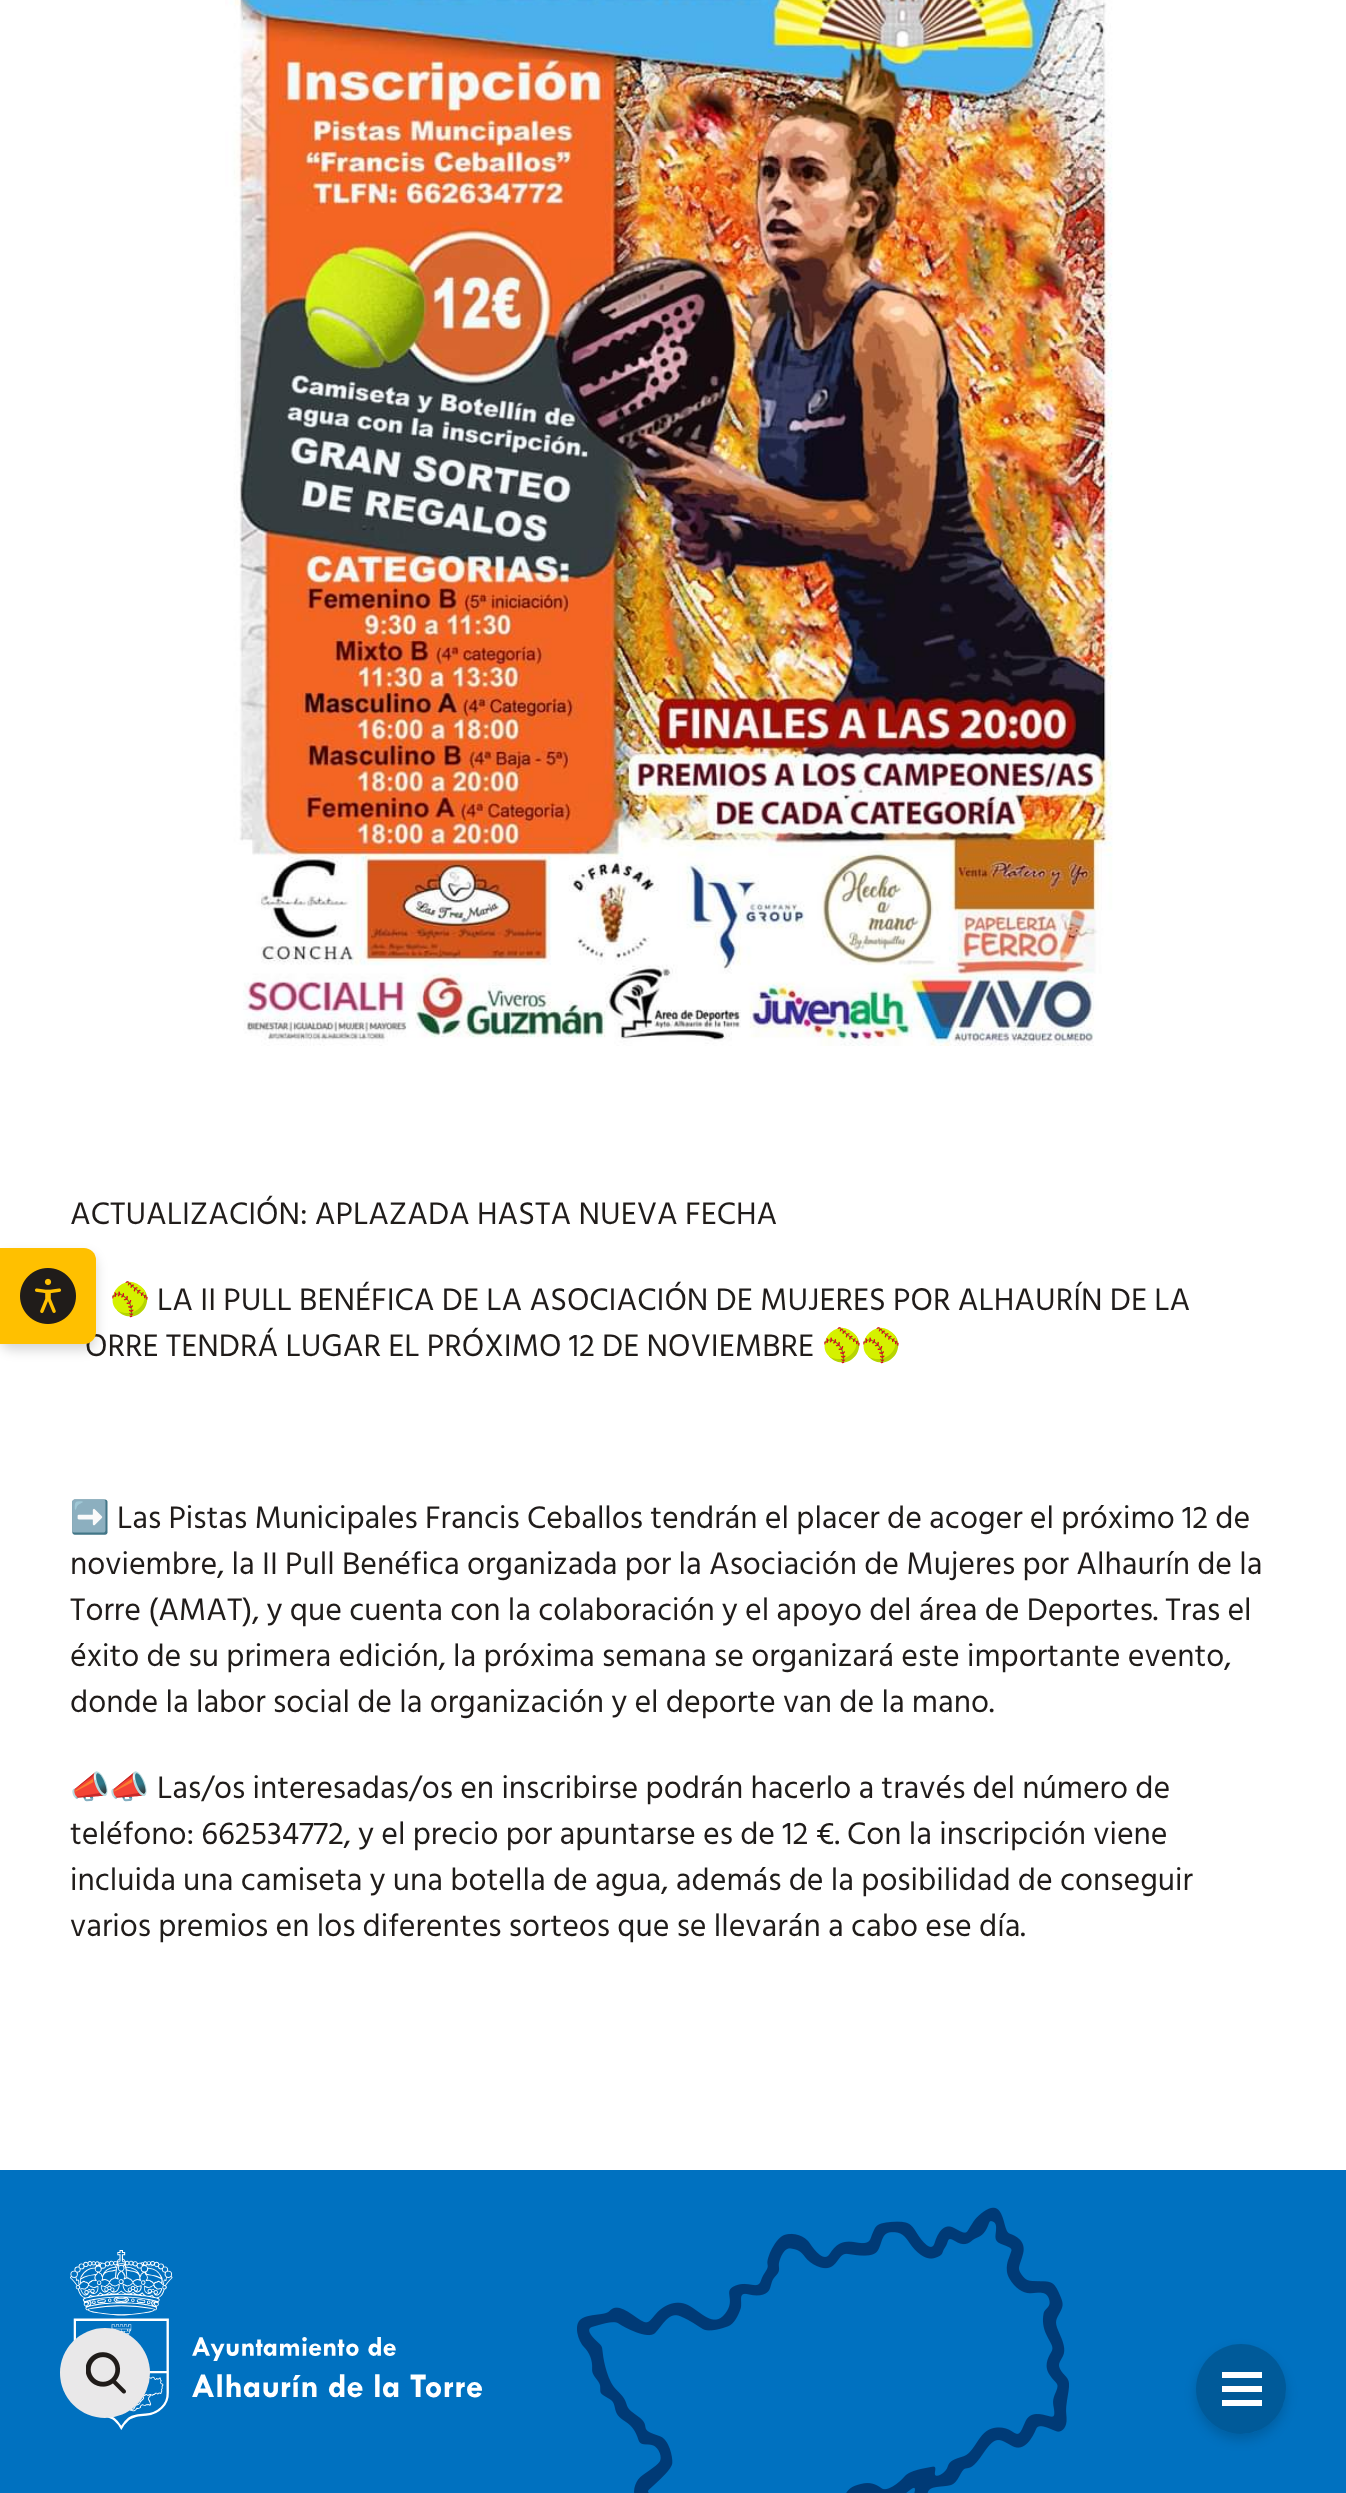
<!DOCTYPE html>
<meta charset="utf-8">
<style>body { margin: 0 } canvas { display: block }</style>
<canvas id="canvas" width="1346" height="2493"></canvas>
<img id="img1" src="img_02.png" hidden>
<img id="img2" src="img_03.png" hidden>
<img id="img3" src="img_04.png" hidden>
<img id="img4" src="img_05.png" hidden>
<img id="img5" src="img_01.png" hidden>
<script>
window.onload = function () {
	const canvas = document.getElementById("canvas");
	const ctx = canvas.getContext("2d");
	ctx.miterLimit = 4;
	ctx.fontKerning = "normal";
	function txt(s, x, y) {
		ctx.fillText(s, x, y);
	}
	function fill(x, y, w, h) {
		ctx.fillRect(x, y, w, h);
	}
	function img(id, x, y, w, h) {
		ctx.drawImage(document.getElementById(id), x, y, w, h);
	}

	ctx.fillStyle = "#FFFFFF";
	fill(0, 0, 1346, 2493);
	ctx.fillStyle = "rgba(0, 0, 0, 0.16)";
	ctx.filter = "blur(6px)";
	ctx.beginPath();
	ctx.roundRect(0, 1254, 96, 96, 12);
	ctx.fill();
	ctx.filter = "none";
	img("img1", 225, 0, 888, 1046);
	ctx.fillStyle = "#0071C0";
	fill(0, 2170, 1346, 323);
	img("img2", 577, 2207, 492, 286);
	img("img3", 70, 2250, 412, 180);
	ctx.fillStyle = "#E9E8E9";
	ctx.beginPath();
	ctx.arc(105, 2373, 45, 0, Math.PI * 2);
	ctx.fill();
	img("img4", 86, 2352, 40, 42);
	ctx.save();
	ctx.beginPath();
	ctx.moveTo(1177, 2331);
	ctx.lineTo(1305, 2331);
	ctx.lineTo(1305, 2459);
	ctx.lineTo(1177, 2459);
	ctx.closePath();
	ctx.moveTo(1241, 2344);
	ctx.bezierCurveTo(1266, 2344, 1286, 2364, 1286, 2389);
	ctx.bezierCurveTo(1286, 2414, 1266, 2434, 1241, 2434);
	ctx.bezierCurveTo(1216, 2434, 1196, 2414, 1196, 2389);
	ctx.bezierCurveTo(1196, 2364, 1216, 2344, 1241, 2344);
	ctx.closePath();
	ctx.clip("evenodd");
	ctx.fillStyle = "rgba(0, 0, 0, 0.16)";
	ctx.filter = "blur(6px)";
	ctx.beginPath();
	ctx.roundRect(1196, 2350, 90, 90, 45);
	ctx.fill();
	ctx.filter = "none";
	ctx.restore();
	ctx.fillStyle = "rgba(0, 0, 0, 0.2)";
	ctx.beginPath();
	ctx.arc(1241, 2389, 45, 0, Math.PI * 2);
	ctx.fill();
	ctx.fillStyle = "#FFFFFF";
	fill(1222, 2372, 40, 6);
	fill(1222, 2386, 40, 6);
	fill(1222, 2400, 40, 6);
	ctx.font = "32px Hind Siliguri";
	ctx.fillStyle = "#201C1A";
	txt("ACTUALIZACIÓN: APLAZADA HASTA NUEVA FECHA", 70, 1224);
	ctx.font = "32px Noto Color Emoji";
	txt("🥎", 110, 1310);
	ctx.font = "32px Hind Siliguri";
	txt("LA II PULL BENÉFICA DE LA ASOCIACIÓN DE MUJERES POR ALHAURÍN DE LA", 157, 1310);
	txt("ORRE TENDRÁ LUGAR EL PRÓXIMO 12 DE NOVIEMBRE", 85, 1356);
	ctx.fillStyle = "#FFC000";
	ctx.beginPath();
	ctx.roundRect(0, 1248, 96, 96, [0, 12, 12, 0]);
	ctx.fill();
	img("img5", 20, 1268, 56, 56);
	ctx.font = "32px Noto Color Emoji";
	ctx.fillStyle = "#201C1A";
	txt("🥎🥎", 822, 1356);
	txt("➡️", 70, 1528);
	ctx.font = "32px Hind Siliguri";
	txt("Las Pistas Municipales Francis Ceballos tendrán el placer de acoger el próximo 12 de", 117, 1528);
	txt("noviembre, la II Pull Benéfica organizada por la Asociación de Mujeres por Alhaurín de la", 70, 1574);
	txt("Torre (AMAT), y que cuenta con la colaboración y el apoyo del área de Deportes. Tras el", 70, 1620);
	txt("éxito de su primera edición, la próxima semana se organizará este importante evento,", 70, 1666);
	txt("donde la labor social de la organización y el deporte van de la mano.", 70, 1712);
	ctx.font = "32px Noto Color Emoji";
	txt("📣📣", 70, 1798);
	ctx.font = "32px Hind Siliguri";
	txt("Las/os interesadas/os en inscribirse podrán hacerlo a través del número de", 157, 1798);
	txt("teléfono: 662534772, y el precio por apuntarse es de 12 €. Con la inscripción viene", 70, 1844);
	txt("incluida una camiseta y una botella de agua, además de la posibilidad de conseguir", 70, 1890);
	txt("varios premios en los diferentes sorteos que se llevarán a cabo ese día.", 70, 1936);
};
</script>
